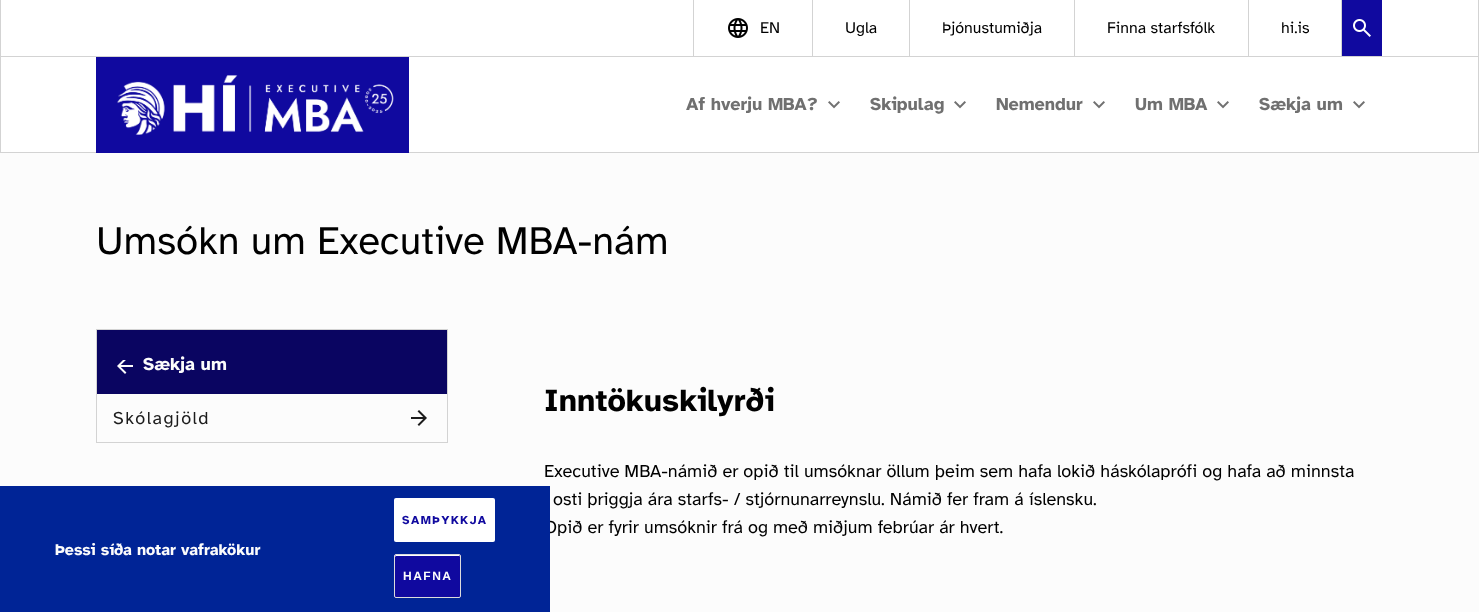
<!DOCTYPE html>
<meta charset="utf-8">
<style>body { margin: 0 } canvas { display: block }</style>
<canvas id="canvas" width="1479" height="612"></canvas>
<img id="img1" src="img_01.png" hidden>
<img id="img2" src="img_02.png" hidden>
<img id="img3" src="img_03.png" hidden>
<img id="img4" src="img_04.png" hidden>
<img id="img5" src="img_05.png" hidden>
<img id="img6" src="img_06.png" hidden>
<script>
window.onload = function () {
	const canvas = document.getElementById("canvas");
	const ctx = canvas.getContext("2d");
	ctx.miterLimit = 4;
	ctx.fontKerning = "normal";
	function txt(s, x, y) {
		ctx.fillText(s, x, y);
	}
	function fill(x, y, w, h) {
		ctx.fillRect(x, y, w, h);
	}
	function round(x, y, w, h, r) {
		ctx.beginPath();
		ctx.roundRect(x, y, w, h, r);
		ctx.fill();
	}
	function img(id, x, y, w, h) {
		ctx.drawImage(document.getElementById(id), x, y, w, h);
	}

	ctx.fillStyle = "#FCFCFC";
	fill(0, 0, 1479, 612);
	ctx.fillStyle = "#FFFFFF";
	fill(1, 0, 1477, 56);
	ctx.fillStyle = "#D3D3D3";
	fill(1478, 0, 1, 153);
	fill(0, 56, 1479, 1);
	fill(0, 0, 1, 57);
	fill(812, 0, 1, 56);
	fill(693, 0, 1, 56);
	img("img1", 728, 18, 20, 20);
	fill(909, 0, 1, 56);
	fill(1074, 0, 1, 56);
	fill(1248, 0, 1, 56);
	fill(1341, 0, 1, 56);
	ctx.fillStyle = "#10099F";
	fill(1342, 0, 40, 56);
	img("img2", 1353, 19, 18, 18);
	ctx.fillStyle = "#FFFFFF";
	fill(1, 57, 1477, 95);
	ctx.fillStyle = "#D3D3D3";
	fill(0, 152, 96, 1);
	fill(0, 57, 1, 96);
	fill(409, 152, 1070, 1);
	img("img3", 96, 57, 313, 96);
	img("img4", 828, 101, 12, 8);
	img("img4", 954, 101, 12, 8);
	img("img4", 1093, 101, 12, 8);
	img("img4", 1217, 101, 12, 8);
	img("img4", 1353, 101, 12, 8);
	ctx.strokeStyle = "#D3D3D3";
	ctx.strokeRect(96.5, 329.5, 351, 113);
	ctx.fillStyle = "#0A0561";
	fill(97, 330, 350, 64);
	img("img5", 117, 360, 16, 14);
	img("img6", 411, 410, 16, 16);
	ctx.font = "16px Atkinson Hyperlegible";
	ctx.fillStyle = "#000000";
	txt("EN", 760, 33);
	txt("Ugla", 845, 33);
	txt("Þjónustumiðja", 942, 33);
	txt("Finna starfsfólk", 1107, 33);
	txt("hi.is", 1281, 33);
	ctx.font = "bold 18px Atkinson Hyperlegible";
	ctx.fillStyle = "#707070";
	txt("Af hverju MBA?", 686, 110);
	txt("Skipulag", 870, 110);
	txt("Nemendur", 996, 110);
	txt("Um MBA", 1135, 110);
	txt("Sækja um", 1259, 110);
	ctx.font = "40px Atkinson Hyperlegible";
	ctx.fillStyle = "#000000";
	txt("Umsókn um Executive MBA-nám", 96, 254);
	ctx.font = "bold 18px Atkinson Hyperlegible";
	ctx.fillStyle = "#FCFCFC";
	txt("Sækja um", 143, 370);
	ctx.letterSpacing = "1.5px";
	ctx.font = "18px Atkinson Hyperlegible";
	ctx.fillStyle = "#1C1C1C";
	txt("Skólagjöld", 113, 424);
	ctx.letterSpacing = "0px";
	ctx.font = "bold 32px Atkinson Hyperlegible";
	ctx.fillStyle = "#000000";
	txt("Inntökuskilyrði", 544, 411);
	ctx.font = "18px Atkinson Hyperlegible";
	txt("Executive MBA-námið er opið til umsóknar öllum þeim sem hafa lokið háskólaprófi og hafa að minnsta", 544, 477);
	txt("osti þriggja ára starfs- / stjórnunarreynslu. Námið fer fram á íslensku.", 553, 505);
	txt("Opið er fyrir umsóknir frá og með miðjum febrúar ár hvert.", 544, 533);
	ctx.fillStyle = "#002496";
	fill(0, 486, 550, 126);
	ctx.font = "bold 16px Atkinson Hyperlegible";
	ctx.fillStyle = "#FCFCFC";
	txt("Þessi síða notar vafrakökur", 55, 555);
	ctx.fillStyle = "#FFFFFF";
	round(394, 498, 101, 44, 2);
	ctx.letterSpacing = "1.5px";
	ctx.font = "bold 12px Atkinson Hyperlegible";
	ctx.fillStyle = "#10099F";
	txt("SAMÞYKKJA", 402, 524);
	round(394, 554, 67, 44, 2);
	ctx.fillStyle = "#FFFFFF";
	ctx.beginPath();
	ctx.moveTo(396, 556);
	ctx.lineTo(459, 556);
	ctx.bezierCurveTo(460, 556, 460, 558, 460, 559);
	ctx.bezierCurveTo(460, 552, 458, 555, 448, 555);
	ctx.lineTo(406, 555);
	ctx.bezierCurveTo(403, 555, 395, 552, 395, 557);
	ctx.closePath();
	ctx.fill();
	ctx.beginPath();
	ctx.roundRect(394.5, 554.5, 66, 43, 1.5);
	ctx.strokeStyle = "#DCDCDC";
	ctx.stroke();
	ctx.font = "bold 12px Liberation Sans";
	ctx.fillStyle = "#FCFCFC";
	txt("HAFNA", 403, 580);
};
</script>
